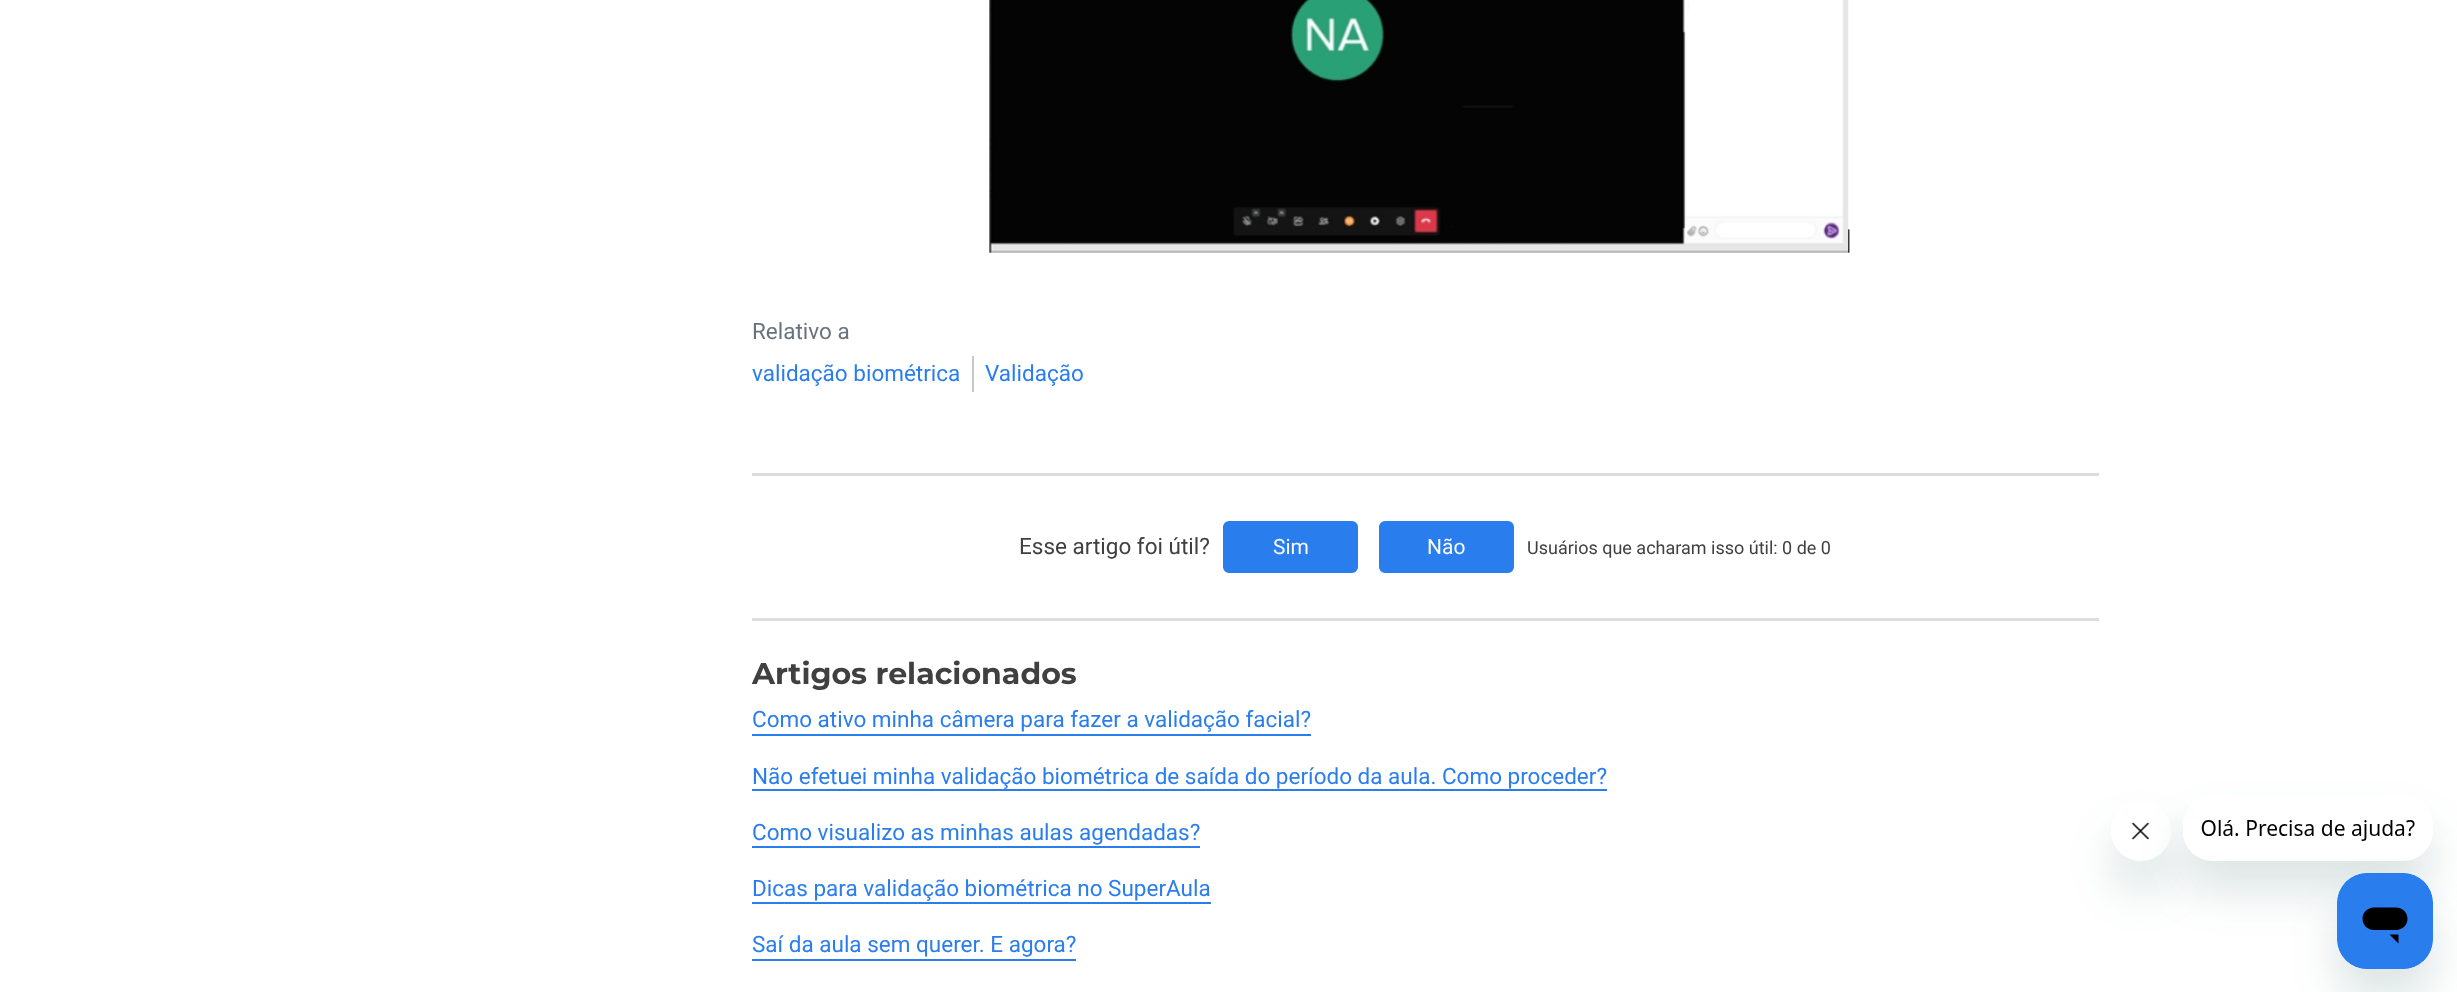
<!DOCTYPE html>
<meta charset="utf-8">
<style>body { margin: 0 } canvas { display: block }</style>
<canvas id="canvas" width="2457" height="992"></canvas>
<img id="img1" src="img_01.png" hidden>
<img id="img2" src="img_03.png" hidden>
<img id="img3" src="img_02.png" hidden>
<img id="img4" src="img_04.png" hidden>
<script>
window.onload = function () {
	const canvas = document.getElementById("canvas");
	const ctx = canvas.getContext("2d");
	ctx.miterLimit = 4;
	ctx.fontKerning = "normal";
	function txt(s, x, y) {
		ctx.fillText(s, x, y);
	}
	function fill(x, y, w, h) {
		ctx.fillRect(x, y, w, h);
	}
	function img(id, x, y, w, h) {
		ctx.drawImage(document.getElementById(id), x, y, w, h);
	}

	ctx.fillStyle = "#FFFFFF";
	fill(0, 0, 2457, 992);
	img("img1", 989, 0, 861, 253);
	ctx.fillStyle = "#C2C8CC";
	fill(972, 356, 2, 36);
	ctx.fillStyle = "#DDDDDD";
	fill(752, 473, 1347, 3);
	ctx.fillStyle = "#297DED";
	ctx.beginPath();
	ctx.roundRect(1224, 522, 133, 50, 5);
	ctx.fill();
	ctx.strokeStyle = "#297DED";
	ctx.lineWidth = 2;
	ctx.stroke();
	ctx.beginPath();
	ctx.roundRect(1380, 522, 133, 50, 5);
	ctx.fill();
	ctx.stroke();
	ctx.fillStyle = "#DDDDDD";
	fill(752, 618, 1347, 3);
	ctx.fillStyle = "#297DED";
	fill(752, 734, 559, 2);
	fill(752, 789, 855, 2);
	fill(752, 846, 448, 2);
	fill(752, 902, 459, 2);
	fill(752, 959, 324, 2);
	ctx.save();
	ctx.beginPath();
	ctx.moveTo(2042, 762);
	ctx.lineTo(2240, 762);
	ctx.lineTo(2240, 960);
	ctx.lineTo(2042, 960);
	ctx.closePath();
	ctx.moveTo(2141, 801);
	ctx.bezierCurveTo(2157.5, 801, 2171, 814.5, 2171, 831);
	ctx.bezierCurveTo(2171, 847.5, 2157.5, 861, 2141, 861);
	ctx.bezierCurveTo(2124.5, 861, 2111, 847.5, 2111, 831);
	ctx.bezierCurveTo(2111, 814.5, 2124.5, 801, 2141, 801);
	ctx.closePath();
	ctx.clip("evenodd");
	ctx.fillStyle = "rgba(23, 73, 77, 0.15)";
	ctx.filter = "blur(22.5px)";
	ctx.beginPath();
	ctx.roundRect(2111, 831, 60, 60, 30);
	ctx.fill();
	ctx.filter = "none";
	ctx.restore();
	img("img2", 2131, 822, 19, 18);
	ctx.save();
	ctx.beginPath();
	ctx.moveTo(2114, 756);
	ctx.lineTo(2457, 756);
	ctx.lineTo(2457, 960);
	ctx.lineTo(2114, 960);
	ctx.closePath();
	ctx.moveTo(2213, 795);
	ctx.lineTo(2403, 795);
	ctx.bezierCurveTo(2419.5, 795, 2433, 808.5, 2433, 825);
	ctx.lineTo(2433, 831);
	ctx.bezierCurveTo(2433, 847.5, 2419.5, 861, 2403, 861);
	ctx.lineTo(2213, 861);
	ctx.bezierCurveTo(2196.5, 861, 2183, 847.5, 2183, 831);
	ctx.lineTo(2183, 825);
	ctx.bezierCurveTo(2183, 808.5, 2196.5, 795, 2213, 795);
	ctx.closePath();
	ctx.clip("evenodd");
	ctx.fillStyle = "rgba(23, 73, 77, 0.15)";
	ctx.filter = "blur(22.5px)";
	ctx.beginPath();
	ctx.roundRect(2183, 825, 250, 66, 30);
	ctx.fill();
	ctx.filter = "none";
	ctx.restore();
	img("img3", 2183, 820, 232, 36);
	ctx.fillStyle = "rgba(23, 73, 77, 0.15)";
	ctx.filter = "blur(22.5px)";
	ctx.beginPath();
	ctx.roundRect(2337, 903, 96, 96, 30);
	ctx.fill();
	ctx.filter = "none";
	img("img4", 2337, 873, 96, 96);
	ctx.font = "22.5px Roboto";
	ctx.fillStyle = "#68737D";
	txt("Relativo a", 752, 339);
	ctx.fillStyle = "#297DED";
	txt("validação biométrica", 752, 381);
	txt("Validação", 985, 381);
	ctx.fillStyle = "#404040";
	txt("Esse artigo foi útil?", 1019, 554);
	ctx.font = "21px Roboto";
	ctx.fillStyle = "#F9F9F9";
	txt("Sim", 1273, 554);
	txt("Não", 1427, 554);
	ctx.font = "18px Roboto";
	ctx.fillStyle = "#404040";
	txt("Usuários que acharam isso útil: 0 de 0", 1527, 554);
	ctx.font = "bold 30px Montserrat";
	txt("Artigos relacionados", 752, 684);
	ctx.font = "22.5px Roboto";
	ctx.fillStyle = "#297DED";
	txt("Como ativo minha câmera para fazer a validação facial?", 752, 727);
	txt("Não efetuei minha validação biométrica de saída do período da aula. Como proceder?", 752, 784);
	txt("Como visualizo as minhas aulas agendadas?", 752, 840);
	txt("Dicas para validação biométrica no SuperAula", 752, 896);
	txt("Saí da aula sem querer. E agora?", 752, 952);
};
</script>
